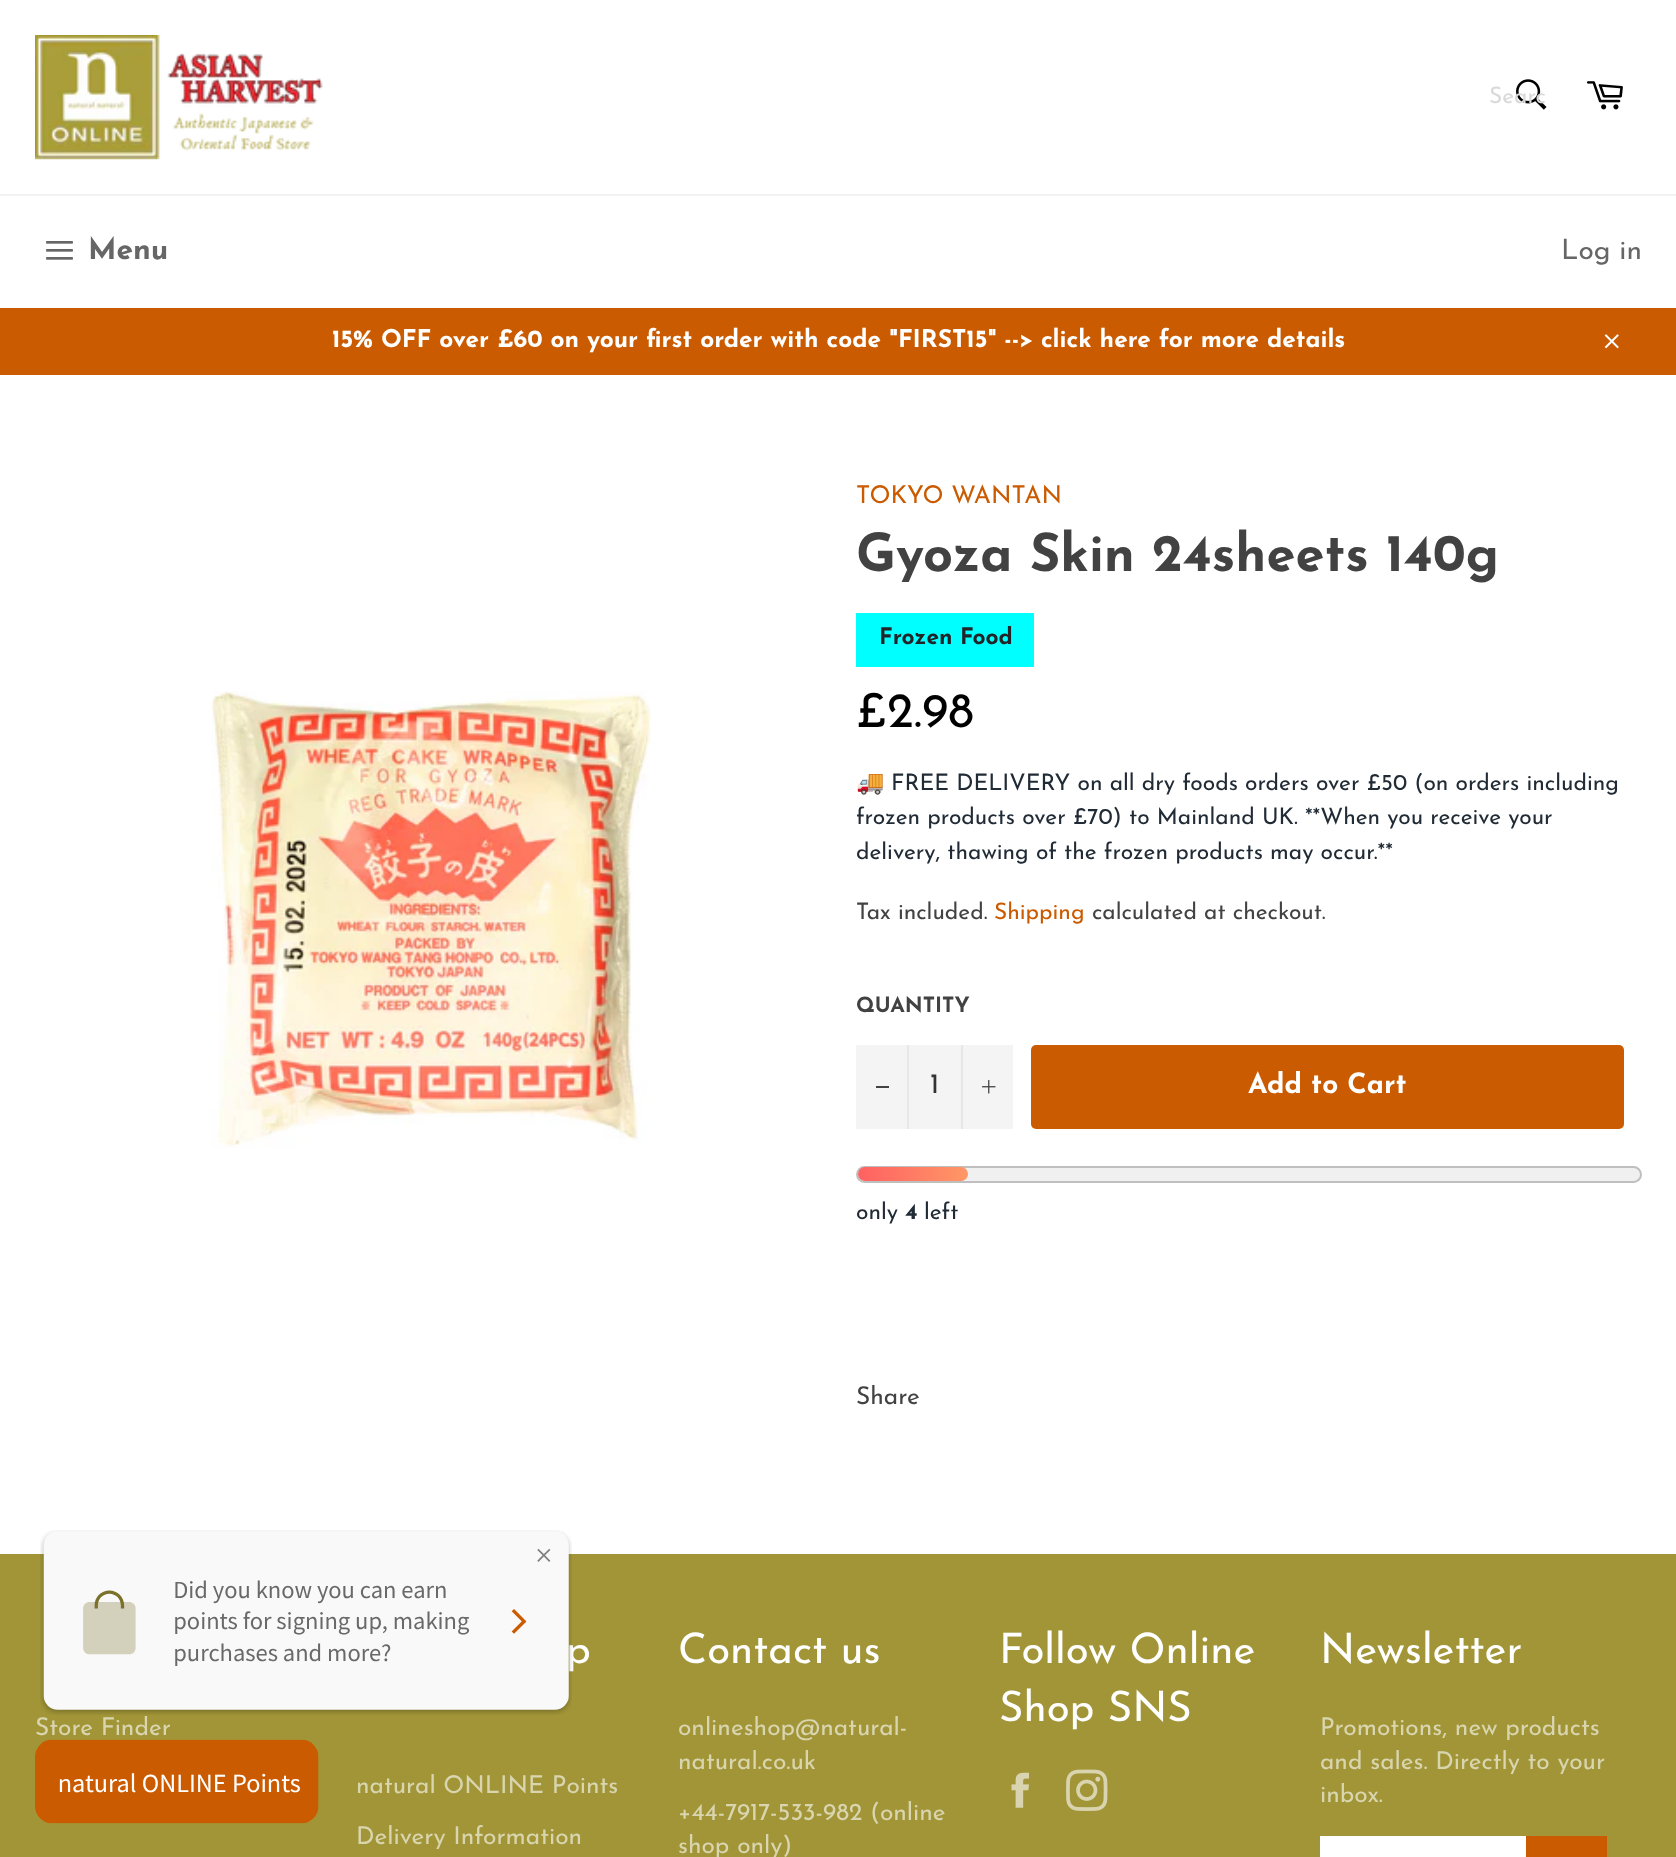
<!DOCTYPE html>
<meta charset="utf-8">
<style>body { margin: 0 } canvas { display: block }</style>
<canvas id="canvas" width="1676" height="1857"></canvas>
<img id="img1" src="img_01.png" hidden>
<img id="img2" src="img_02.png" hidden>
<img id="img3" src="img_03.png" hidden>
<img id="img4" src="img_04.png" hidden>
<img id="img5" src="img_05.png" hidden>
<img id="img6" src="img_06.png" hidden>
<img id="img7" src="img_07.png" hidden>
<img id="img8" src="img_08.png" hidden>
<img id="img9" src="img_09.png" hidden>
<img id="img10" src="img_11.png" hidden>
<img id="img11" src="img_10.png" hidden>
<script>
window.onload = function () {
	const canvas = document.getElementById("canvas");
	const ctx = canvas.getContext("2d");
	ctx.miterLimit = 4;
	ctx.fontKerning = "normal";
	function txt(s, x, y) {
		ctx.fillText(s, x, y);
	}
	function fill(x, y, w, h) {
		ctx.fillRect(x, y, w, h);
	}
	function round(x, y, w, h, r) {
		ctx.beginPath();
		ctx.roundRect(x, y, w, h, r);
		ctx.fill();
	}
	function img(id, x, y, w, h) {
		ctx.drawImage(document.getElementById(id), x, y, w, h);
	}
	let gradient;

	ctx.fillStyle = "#FFFFFF";
	fill(0, 0, 1676, 1857);
	img("img1", 35, 35, 288, 125);
	img("img2", 1516, 79, 31, 31);
	img("img3", 1586, 81, 37, 29);
	ctx.fillStyle = "#F2F2F2";
	fill(0, 194, 1676, 2);
	img("img4", 46, 241, 27, 19);
	ctx.fillStyle = "#CA5B00";
	fill(0, 308, 1676, 67);
	img("img5", 1604, 334, 15, 15);
	img("img6", 211, 691, 440, 457);
	ctx.fillStyle = "#00FFFF";
	fill(856, 613, 178, 54);
	ctx.fillStyle = "#F4F4F4";
	fill(856, 1045, 157, 84);
	ctx.fillStyle = "#E7E7E7";
	fill(907, 1045, 2, 84);
	ctx.fillStyle = "#424242";
	fill(876, 1086, 13, 2);
	ctx.fillStyle = "#E7E7E7";
	fill(961, 1045, 2, 84);
	img("img7", 982, 1080, 14, 14);
	ctx.fillStyle = "#CA5B00";
	round(1031, 1045, 593, 84, 5);
	ctx.fillStyle = "#F0F0F0";
	ctx.beginPath();
	ctx.roundRect(857, 1167, 784, 15, 7.5);
	ctx.fill();
	ctx.strokeStyle = "#BFBFBF";
	ctx.lineWidth = 2;
	ctx.stroke();
	gradient = ctx.createLinearGradient(858, 1174, 968, 1174);
	gradient.addColorStop(0, "#FF6162");
	gradient.addColorStop(1, "#FF9766");
	ctx.fillStyle = gradient;
	round(858, 1167, 110, 14, 7);
	ctx.fillStyle = "#A19537";
	fill(0, 1554, 1676, 303);
	img("img8", 1011, 1772, 18, 36);
	img("img9", 1066, 1769, 42, 42);
	ctx.fillStyle = "#FFFFFF";
	fill(1320, 1836, 206, 21);
	ctx.fillStyle = "#CA5B00";
	fill(1526, 1836, 81, 21);
	img("img10", 35, 1739, 284, 85);
	ctx.font = "100 22.75px Josefin Sans";
	ctx.fillStyle = "#D9D9D9";
	txt("Searc", 1489, 103);
	ctx.font = "bold 30px Josefin Sans";
	ctx.fillStyle = "#666666";
	txt("Menu", 88, 259);
	ctx.font = "100 28px Josefin Sans";
	txt("Log in", 1561, 259);
	ctx.font = "bold 24.5px Josefin Sans";
	ctx.fillStyle = "#FFFFFF";
	txt("15% OFF over £60 on your first order with code \"FIRST15\" --> click here for more details", 332, 347);
	ctx.font = "100 24.5px Josefin Sans";
	ctx.fillStyle = "#CA5B00";
	txt("TOKYO WANTAN", 856, 503);
	ctx.font = "bold 52.5px Josefin Sans";
	ctx.fillStyle = "#424242";
	txt("Gyoza Skin 24sheets 140g", 856, 571);
	ctx.font = "bold 22.75px Josefin Sans";
	ctx.fillStyle = "#212529";
	txt("Frozen Food", 879, 644);
	ctx.font = "100 49px Josefin Sans";
	ctx.fillStyle = "#000000";
	txt("£2.98", 856, 727);
	ctx.font = "22.75px Noto Color Emoji";
	ctx.fillStyle = "#212B35";
	txt("🚚", 856, 790);
	ctx.font = "100 22.75px Josefin Sans";
	txt("FREE DELIVERY on all dry foods orders over £50 (on orders including", 891, 790);
	txt("frozen products over £70) to Mainland UK. **When you receive your", 856, 824);
	txt("delivery, thawing of the frozen products may occur.**", 856, 859);
	ctx.fillStyle = "#424242";
	txt("Tax included.", 856, 919);
	ctx.fillStyle = "#CA5B00";
	txt("Shipping", 994, 919);
	ctx.fillStyle = "#424242";
	txt("calculated at checkout.", 1092, 919);
	ctx.font = "bold 21px Josefin Sans";
	txt("QUANTITY", 856, 1012);
	ctx.font = "100 28px Josefin Sans";
	ctx.fillStyle = "#333333";
	txt("1", 930, 1093);
	ctx.font = "bold 28px Josefin Sans";
	ctx.fillStyle = "#FFFFFF";
	txt("Add to Cart", 1248, 1093);
	ctx.font = "100 22.75px Josefin Sans";
	ctx.fillStyle = "#212B35";
	txt("only", 856, 1219);
	ctx.font = "bold 22.75px Josefin Sans";
	txt("4", 905, 1219);
	ctx.font = "100 22.75px Josefin Sans";
	txt("left", 924, 1219);
	ctx.font = "100 24.5px Josefin Sans";
	ctx.fillStyle = "#424242";
	txt("Share", 856, 1404);
	ctx.fillStyle = "#D9D5AF";
	txt("Store Finder", 35, 1735);
	ctx.font = "100 42px Josefin Sans";
	ctx.fillStyle = "#FFFFFF";
	txt("p", 566, 1663);
	ctx.font = "100 24.5px Josefin Sans";
	ctx.fillStyle = "#D9D5AF";
	txt("natural ONLINE Points", 356, 1793);
	txt("Delivery Information", 356, 1844);
	ctx.font = "100 42px Josefin Sans";
	ctx.fillStyle = "#FFFFFF";
	txt("Contact us", 678, 1663);
	ctx.font = "100 24.5px Josefin Sans";
	ctx.fillStyle = "#D9D5AF";
	txt("onlineshop@natural-", 678, 1735);
	txt("natural.co.uk", 678, 1769);
	txt("+44-7917-533-982 (online", 678, 1820);
	txt("shop only)", 678, 1853);
	ctx.font = "100 42px Josefin Sans";
	ctx.fillStyle = "#FFFFFF";
	txt("Follow Online", 999, 1663);
	txt("Shop SNS", 999, 1721);
	txt("Newsletter", 1320, 1663);
	ctx.font = "100 24.5px Josefin Sans";
	ctx.fillStyle = "#D9D5AF";
	txt("Promotions, new products", 1320, 1735);
	txt("and sales. Directly to your", 1320, 1769);
	txt("inbox.", 1320, 1802);
	img("img11", 40, 1530, 532, 185);
};
</script>
